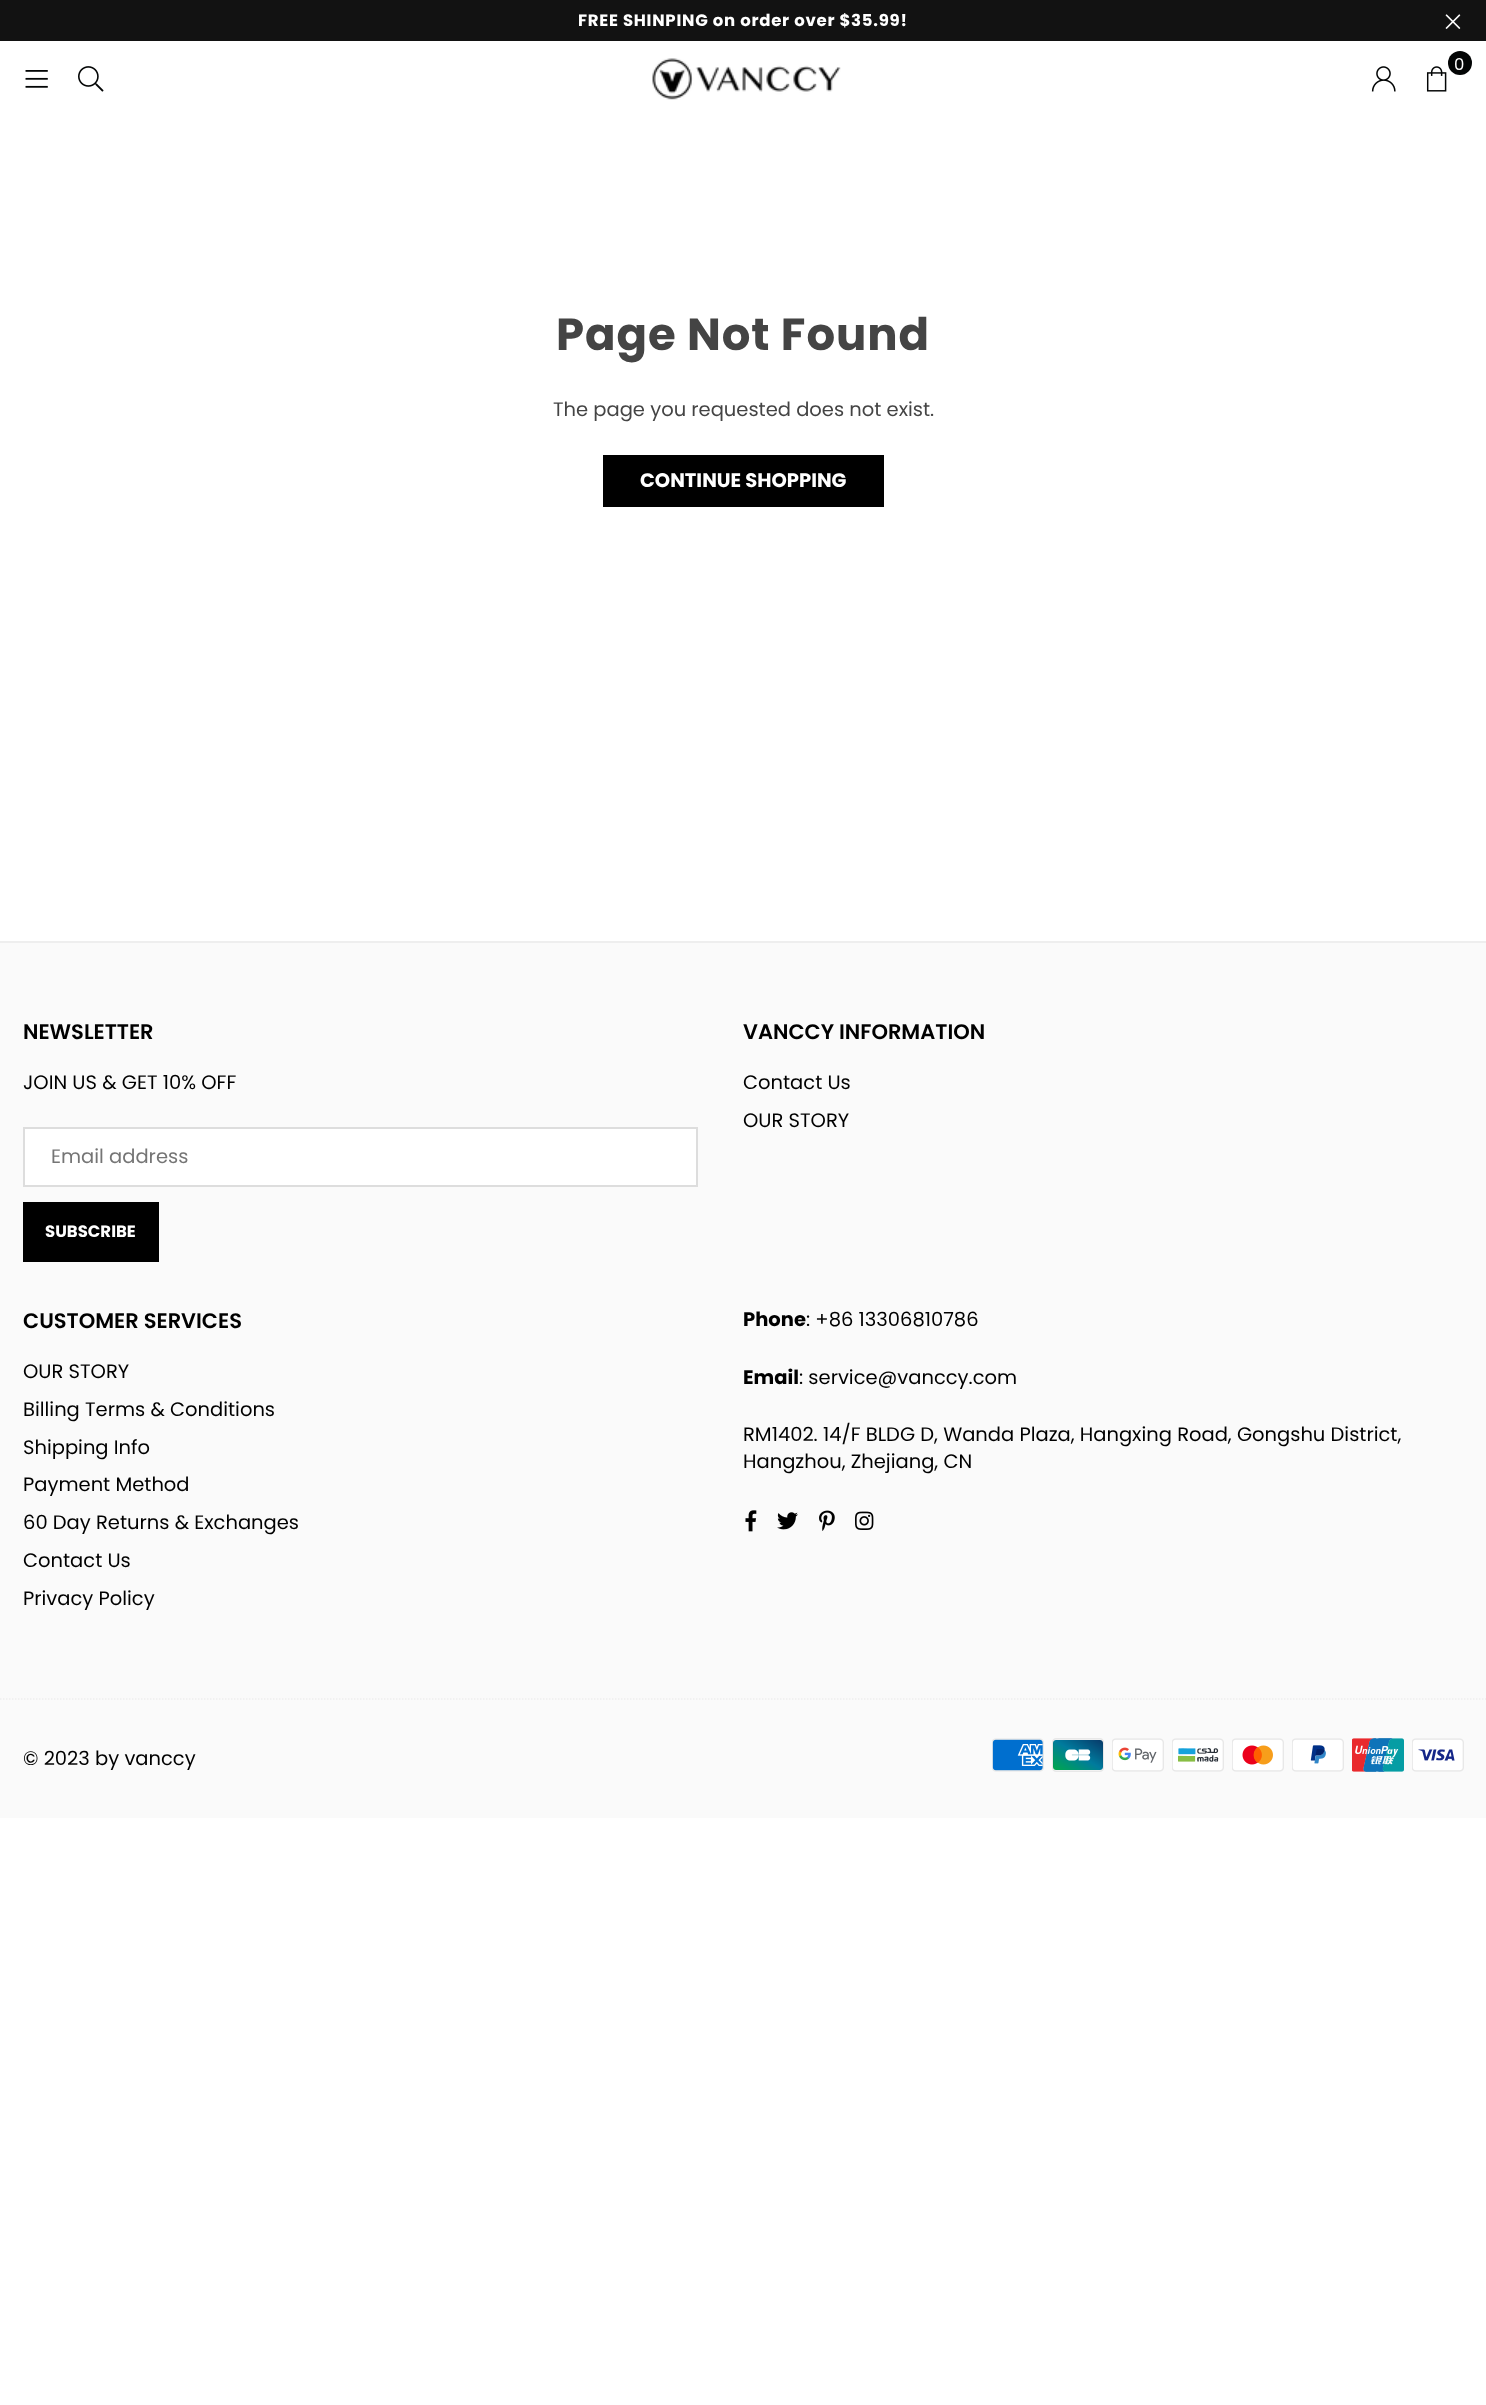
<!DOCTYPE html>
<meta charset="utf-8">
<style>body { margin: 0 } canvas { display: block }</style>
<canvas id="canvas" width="1486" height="2405"></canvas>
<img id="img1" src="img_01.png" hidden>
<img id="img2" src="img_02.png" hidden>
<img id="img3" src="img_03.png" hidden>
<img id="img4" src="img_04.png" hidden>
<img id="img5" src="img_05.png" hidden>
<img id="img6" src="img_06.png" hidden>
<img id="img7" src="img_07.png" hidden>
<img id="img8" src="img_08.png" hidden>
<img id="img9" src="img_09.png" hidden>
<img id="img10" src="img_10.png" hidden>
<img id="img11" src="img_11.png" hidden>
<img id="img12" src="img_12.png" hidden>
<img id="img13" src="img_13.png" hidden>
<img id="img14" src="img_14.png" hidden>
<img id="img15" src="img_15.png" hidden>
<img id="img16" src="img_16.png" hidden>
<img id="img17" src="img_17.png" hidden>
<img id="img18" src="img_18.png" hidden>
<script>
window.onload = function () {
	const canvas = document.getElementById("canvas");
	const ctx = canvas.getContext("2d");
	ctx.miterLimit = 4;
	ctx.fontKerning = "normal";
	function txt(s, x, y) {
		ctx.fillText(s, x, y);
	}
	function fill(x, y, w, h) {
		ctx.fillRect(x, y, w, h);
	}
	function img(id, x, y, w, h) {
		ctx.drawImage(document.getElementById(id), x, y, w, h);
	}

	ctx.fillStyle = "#FFFFFF";
	fill(0, 0, 1486, 2405);
	ctx.fillStyle = "#121212";
	fill(0, 0, 1486, 41);
	img("img1", 1445, 14, 16, 15);
	img("img2", 25, 70, 23, 18);
	img("img3", 78, 66, 26, 26);
	img("img4", 652, 58, 189, 42);
	ctx.fillStyle = "#030505";
	ctx.beginPath();
	ctx.arc(1460, 63, 12, 0, Math.PI * 2);
	ctx.fill();
	img("img5", 1426, 66, 21, 26);
	img("img6", 1371, 66, 25, 26);
	ctx.fillStyle = "#000000";
	fill(603, 455, 281, 52);
	ctx.fillStyle = "#FAFAFA";
	fill(0, 943, 1486, 875);
	ctx.fillStyle = "#EEEEEE";
	fill(0, 941, 1486, 2);
	ctx.fillStyle = "#FFFFFF";
	ctx.beginPath();
	ctx.rect(24, 1128, 673, 58);
	ctx.fill();
	ctx.strokeStyle = "#DDDDDD";
	ctx.lineWidth = 2;
	ctx.stroke();
	ctx.fillStyle = "#000000";
	fill(23, 1202, 136, 60);
	img("img7", 745, 1510, 12, 22);
	img("img8", 777, 1512, 21, 18);
	img("img9", 819, 1510, 16, 21);
	img("img10", 855, 1511, 19, 19);
	ctx.beginPath();
	ctx.moveTo(0, 1699);
	ctx.lineTo(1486.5, 1699);
	ctx.strokeStyle = "#EEEEEE";
	ctx.lineWidth = 1.5;
	ctx.setLineDash([1.5, 1.5]);
	ctx.stroke();
	img("img11", 992, 1738, 52, 34);
	img("img12", 1052, 1738, 52, 34);
	img("img13", 1112, 1738, 52, 34);
	img("img14", 1172, 1738, 52, 34);
	img("img15", 1232, 1738, 52, 34);
	img("img16", 1292, 1738, 52, 34);
	img("img17", 1352, 1738, 52, 34);
	img("img18", 1412, 1738, 52, 34);
	ctx.letterSpacing = "0.75px";
	ctx.font = "bold 16.5px Poppins";
	ctx.fillStyle = "#FFFFFF";
	txt("FREE SHINPING on order over $35.99!", 578, 26);
	ctx.letterSpacing = "0px";
	ctx.font = "16.5px Poppins";
	txt("0", 1454, 70);
	ctx.letterSpacing = "0.9px";
	ctx.font = "bold 45px Poppins";
	ctx.fillStyle = "#444444";
	txt("Page Not Found", 556, 350);
	ctx.letterSpacing = "0px";
	ctx.font = "19.5px Poppins";
	txt("The page you requested does not exist.", 553, 416);
	ctx.font = "bold 19.5px Poppins";
	ctx.fillStyle = "#FFFFFF";
	txt("CONTINUE SHOPPING", 640, 487);
	ctx.font = "600 21px Poppins";
	ctx.fillStyle = "#000000";
	txt("NEWSLETTER", 23, 1039);
	ctx.font = "19.5px Poppins";
	txt("JOIN US & GET 10% OFF", 23, 1089);
	ctx.fillStyle = "#757575";
	txt("Email address", 51, 1163);
	ctx.font = "bold 16.5px Poppins";
	ctx.fillStyle = "#FFFFFF";
	txt("SUBSCRIBE", 45, 1237);
	ctx.font = "600 21px Poppins";
	ctx.fillStyle = "#000000";
	txt("VANCCY INFORMATION", 743, 1039);
	ctx.font = "19.5px Poppins";
	txt("Contact Us", 743, 1089);
	txt("OUR STORY", 743, 1127);
	ctx.font = "600 21px Poppins";
	txt("CUSTOMER SERVICES", 23, 1328);
	ctx.font = "19.5px Poppins";
	txt("OUR STORY", 23, 1378);
	txt("Billing Terms & Conditions", 23, 1416);
	txt("Shipping Info", 23, 1454);
	txt("Payment Method", 23, 1491);
	txt("60 Day Returns & Exchanges", 23, 1529);
	txt("Contact Us", 23, 1567);
	txt("Privacy Policy", 23, 1605);
	ctx.font = "bold 19.5px Poppins";
	txt("Phone", 743, 1326);
	ctx.font = "19.5px Poppins";
	txt(": +86 13306810786", 806, 1326);
	ctx.font = "bold 19.5px Poppins";
	txt("Email", 743, 1384);
	ctx.font = "19.5px Poppins";
	txt(": service@vanccy.com", 799, 1384);
	txt("RM1402. 14/F BLDG D, Wanda Plaza, Hangxing Road, Gongshu District,", 743, 1441);
	txt("Hangzhou, Zhejiang, CN", 743, 1468);
	txt("© 2023 by vanccy", 23, 1765);
};
</script>
